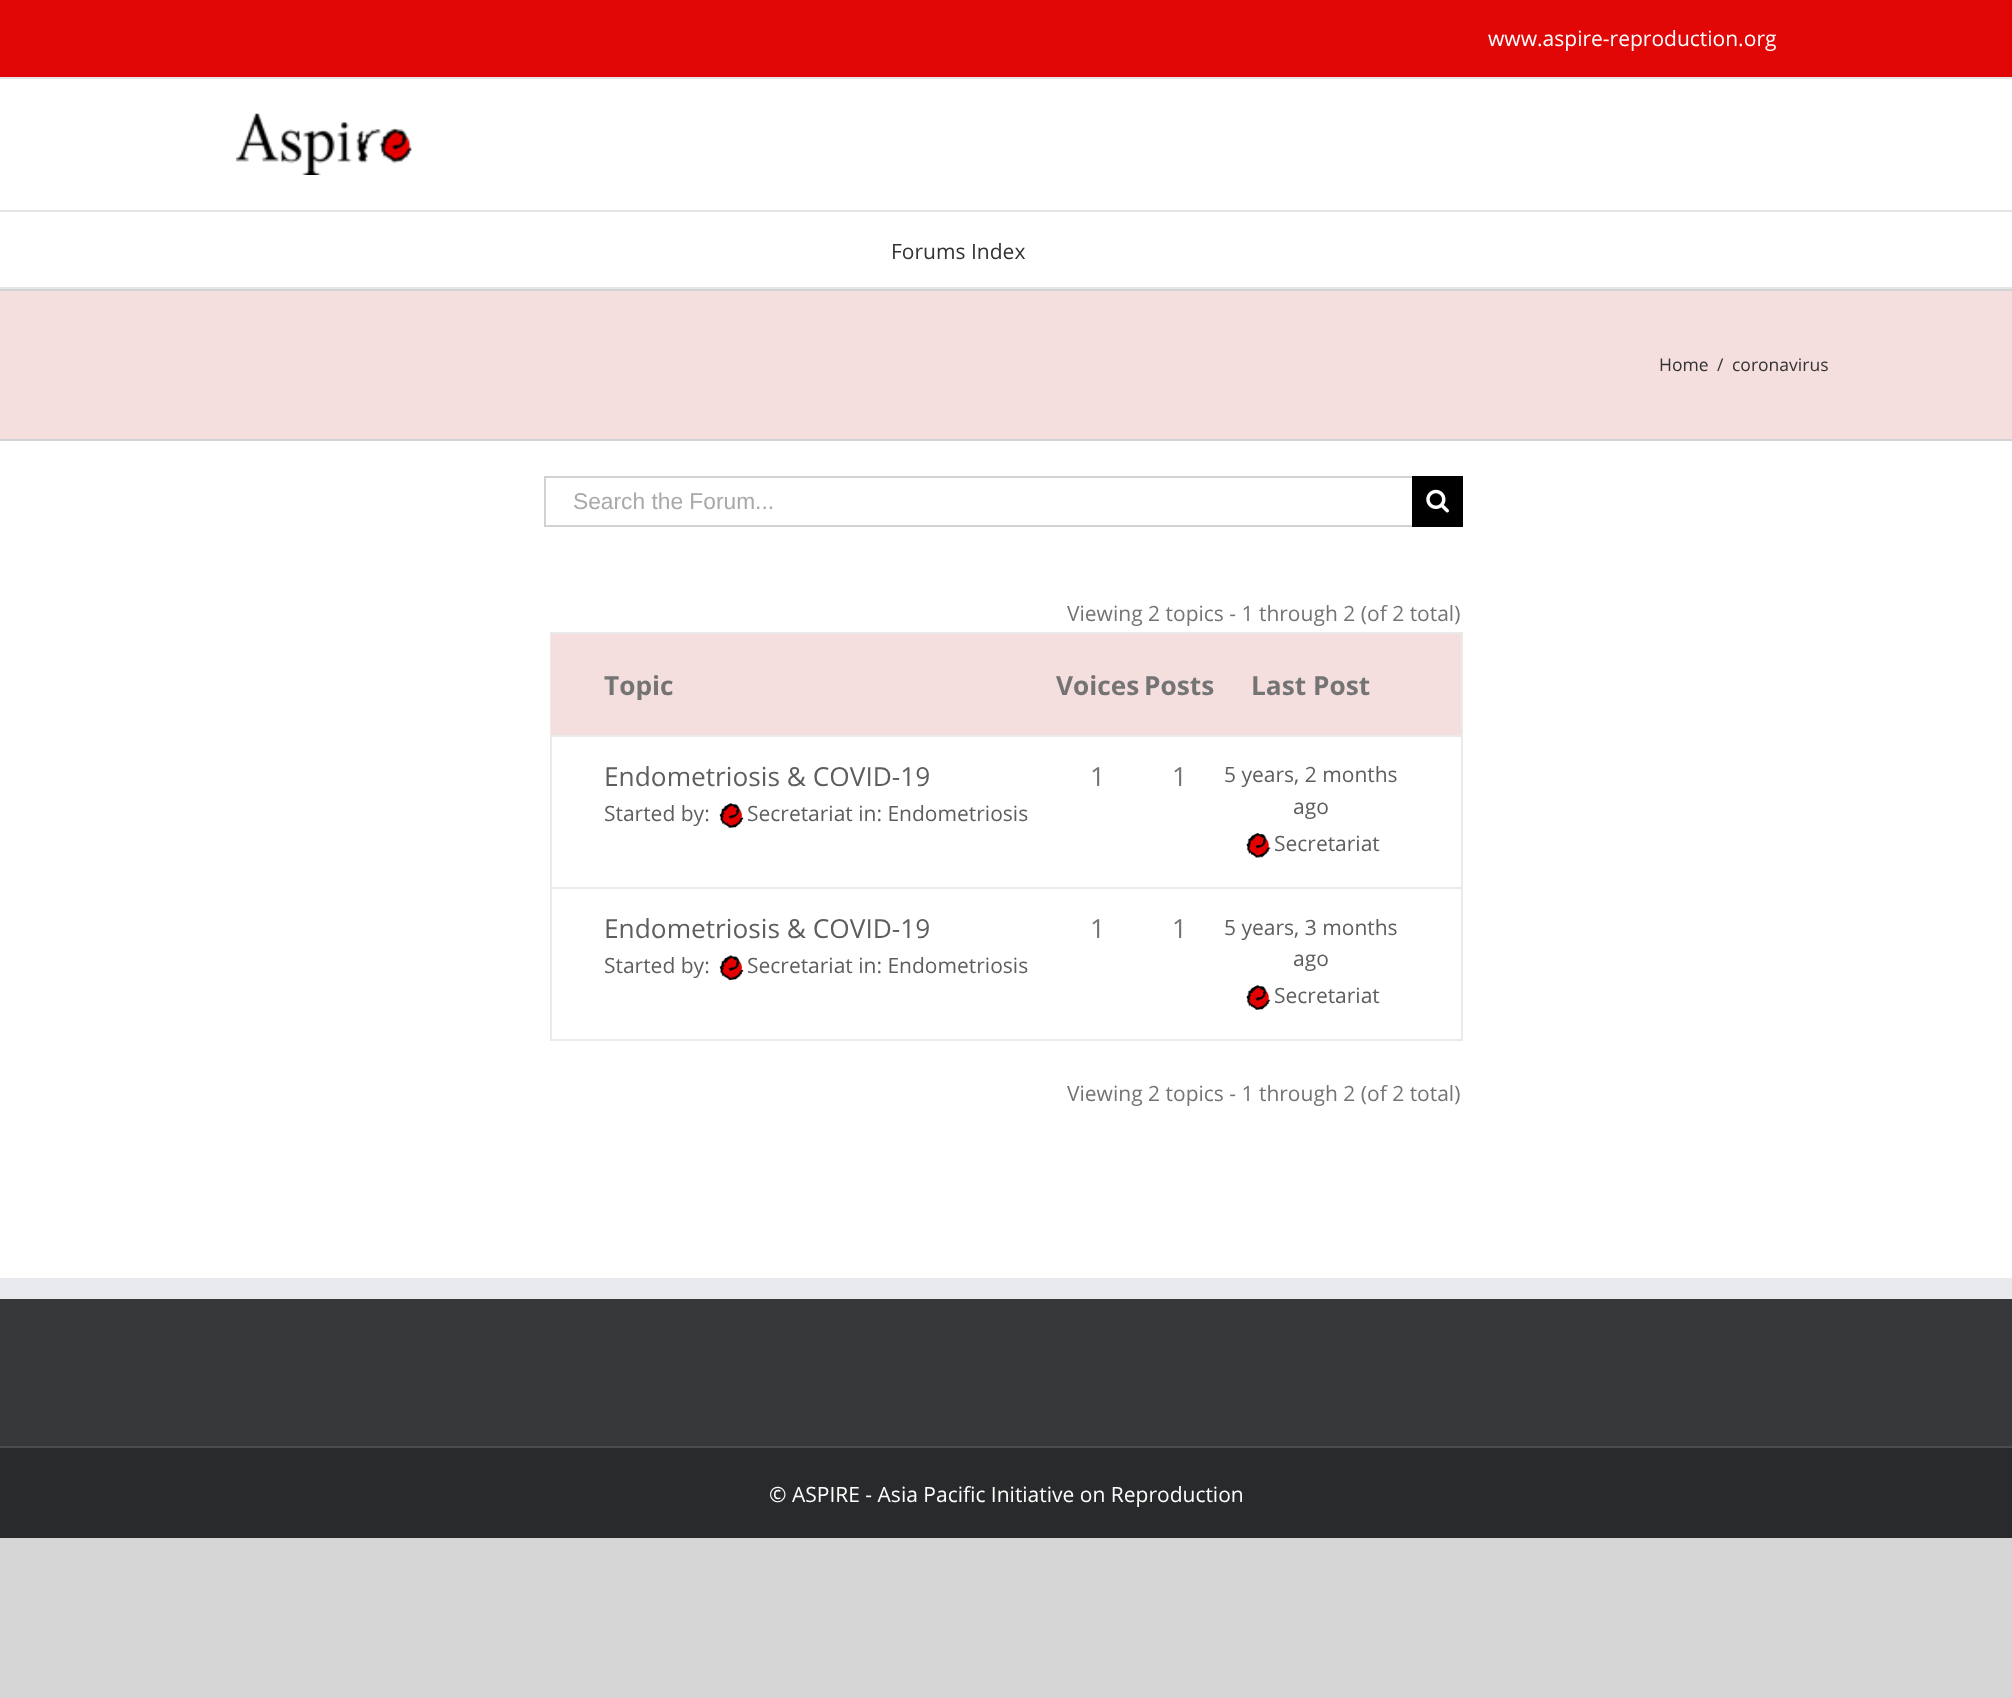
<!DOCTYPE html>
<meta charset="utf-8">
<style>body { margin: 0 } canvas { display: block }</style>
<canvas id="canvas" width="2012" height="1698"></canvas>
<img id="img1" src="img_01.png" hidden>
<img id="img2" src="img_02.png" hidden>
<img id="img3" src="img_03.png" hidden>
<img id="img4" src="img_04.png" hidden>
<img id="img5" src="img_05.png" hidden>
<img id="img6" src="img_06.png" hidden>
<script>
window.onload = function () {
	const canvas = document.getElementById("canvas");
	const ctx = canvas.getContext("2d");
	ctx.miterLimit = 4;
	ctx.fontKerning = "normal";
	function txt(s, x, y) {
		ctx.fillText(s, x, y);
	}
	function fill(x, y, w, h) {
		ctx.fillRect(x, y, w, h);
	}
	function img(id, x, y, w, h) {
		ctx.drawImage(document.getElementById(id), x, y, w, h);
	}

	ctx.fillStyle = "#D7D6D6";
	fill(0, 0, 2012, 1698);
	ctx.fillStyle = "#FFFFFF";
	fill(0, 79, 2012, 1199);
	ctx.fillStyle = "#E10707";
	fill(0, 0, 2012, 77);
	ctx.fillStyle = "#E5E5E5";
	fill(0, 77, 2012, 2);
	fill(0, 210, 2012, 2);
	img("img1", 236, 113, 176, 62);
	fill(0, 287, 2012, 2);
	ctx.fillStyle = "#F4DEDE";
	fill(0, 291, 2012, 148);
	ctx.fillStyle = "#D2D3D4";
	fill(0, 289, 2012, 2);
	fill(0, 439, 2012, 2);
	ctx.fillStyle = "#D2D2D2";
	fill(544, 476, 868, 2);
	fill(544, 525, 868, 2);
	fill(544, 476, 2, 51);
	ctx.fillStyle = "#000000";
	fill(1412, 476, 51, 51);
	img("img2", 1426, 489, 23, 24);
	ctx.strokeStyle = "#EBEAEA";
	ctx.lineWidth = 2;
	ctx.strokeRect(551, 633, 911, 407);
	ctx.fillStyle = "#F4DEDE";
	fill(551, 634, 910, 101);
	ctx.fillStyle = "#EBEAEA";
	fill(551, 735, 910, 2);
	img("img3", 719, 803, 25, 25);
	img("img4", 1246, 833, 25, 25);
	fill(551, 887, 910, 2);
	img("img5", 719, 955, 25, 25);
	img("img6", 1246, 985, 25, 25);
	ctx.fillStyle = "#363839";
	fill(0, 1299, 2012, 147);
	ctx.fillStyle = "#E9EAEE";
	fill(0, 1278, 2012, 21);
	ctx.fillStyle = "#282A2B";
	fill(0, 1448, 2012, 90);
	ctx.fillStyle = "#4B4C4D";
	fill(0, 1446, 2012, 2);
	ctx.font = "21px Open Sans";
	ctx.fillStyle = "#FFFFFF";
	txt("www.aspire-reproduction.org", 1488, 46);
	ctx.fillStyle = "#333333";
	txt("Forums Index", 891, 259);
	ctx.font = "17.5px Open Sans";
	txt("Home", 1659, 371);
	txt("/", 1717, 371);
	txt("coronavirus", 1732, 371);
	ctx.font = "22.75px Liberation Sans";
	ctx.fillStyle = "#AAA9A9";
	txt("Search the Forum...", 573, 509);
	ctx.font = "21px Open Sans";
	ctx.fillStyle = "#747474";
	txt("Viewing 2 topics - 1 through 2 (of 2 total)", 1067, 621);
	ctx.save();
	ctx.beginPath();
	ctx.rect(604, 669, 822, 31);
	ctx.clip();
	ctx.font = "bold 26.25px Open Sans";
	txt("Topic", 604, 695);
	ctx.restore();
	ctx.font = "bold 26.25px Open Sans";
	txt("Voices", 1056, 695);
	txt("Posts", 1144, 695);
	txt("Last Post", 1251, 695);
	ctx.font = "26.25px Open Sans";
	ctx.fillStyle = "#5E5E5E";
	txt("Endometriosis & COVID-19", 604, 786);
	ctx.font = "21px Open Sans";
	txt("Started by:", 604, 821);
	txt("Secretariat in: Endometriosis", 747, 821);
	ctx.font = "26.25px Open Sans";
	ctx.fillStyle = "#747474";
	txt("1", 1090, 786);
	txt("1", 1172, 786);
	ctx.font = "21px Open Sans";
	ctx.fillStyle = "#5E5E5E";
	txt("5 years, 2 months", 1224, 782);
	txt("ago", 1293, 814);
	txt("Secretariat", 1274, 851);
	ctx.font = "26.25px Open Sans";
	txt("Endometriosis & COVID-19", 604, 938);
	ctx.font = "21px Open Sans";
	txt("Started by:", 604, 973);
	txt("Secretariat in: Endometriosis", 747, 973);
	ctx.font = "26.25px Open Sans";
	ctx.fillStyle = "#747474";
	txt("1", 1090, 938);
	txt("1", 1172, 938);
	ctx.font = "21px Open Sans";
	ctx.fillStyle = "#5E5E5E";
	txt("5 years, 3 months", 1224, 935);
	txt("ago", 1293, 966);
	txt("Secretariat", 1274, 1003);
	ctx.fillStyle = "#747474";
	txt("Viewing 2 topics - 1 through 2 (of 2 total)", 1067, 1101);
	ctx.fillStyle = "#FFFFFF";
	txt("© ASPIRE - Asia Pacific Initiative on Reproduction", 769, 1502);
};
</script>
